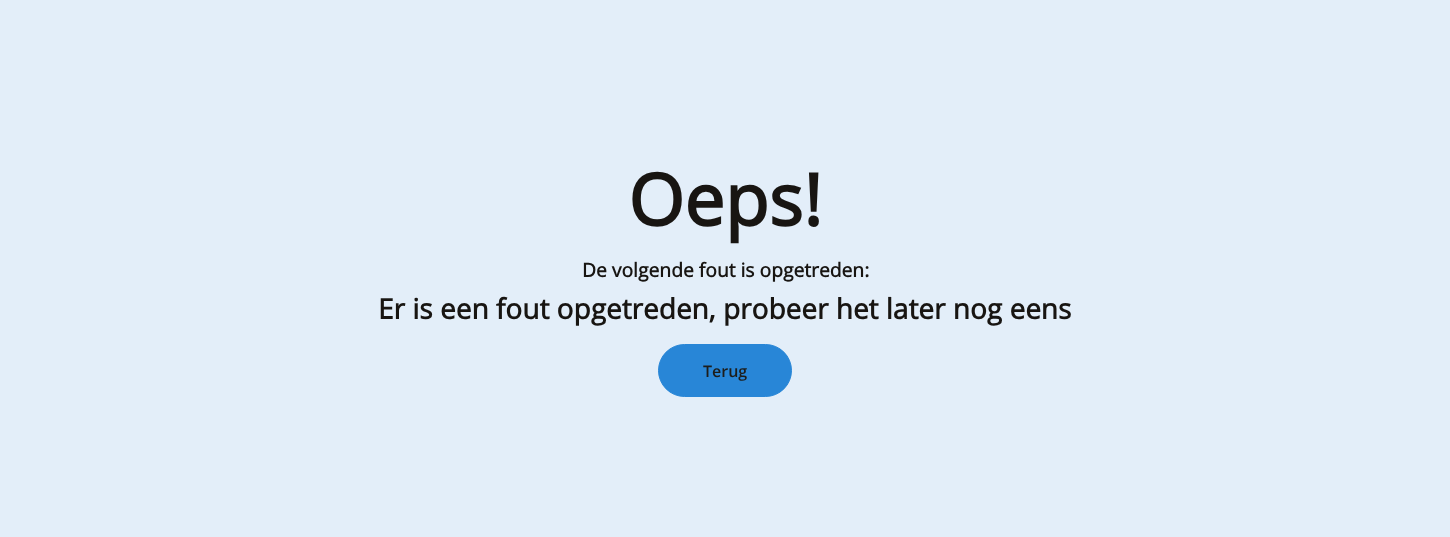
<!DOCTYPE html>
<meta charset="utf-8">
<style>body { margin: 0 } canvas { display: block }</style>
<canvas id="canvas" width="1450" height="537"></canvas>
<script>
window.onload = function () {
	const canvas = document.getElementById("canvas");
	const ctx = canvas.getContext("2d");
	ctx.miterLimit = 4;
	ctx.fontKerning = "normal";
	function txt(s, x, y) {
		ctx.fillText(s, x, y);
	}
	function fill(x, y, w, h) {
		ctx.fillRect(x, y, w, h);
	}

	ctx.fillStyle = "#E3EEF9";
	fill(0, 0, 1450, 537);
	ctx.fillStyle = "#2886D7";
	ctx.beginPath();
	ctx.roundRect(658.5, 344.5, 133, 52, 26);
	ctx.fill();
	ctx.strokeStyle = "#2886D7";
	ctx.stroke();
	ctx.font = "bold 72px Open Sans";
	ctx.fillStyle = "#181512";
	txt("Oeps!", 628, 226);
	ctx.font = "bold 19.25px Open Sans";
	txt("De volgende fout is opgetreden:", 582, 277);
	ctx.font = "bold 28px Open Sans";
	txt("Er is een fout opgetreden, probeer het later nog eens", 378, 319);
	ctx.font = "600 16px Open Sans";
	ctx.fillStyle = "#1D1D1B";
	txt("Terug", 703, 377);
};
</script>
